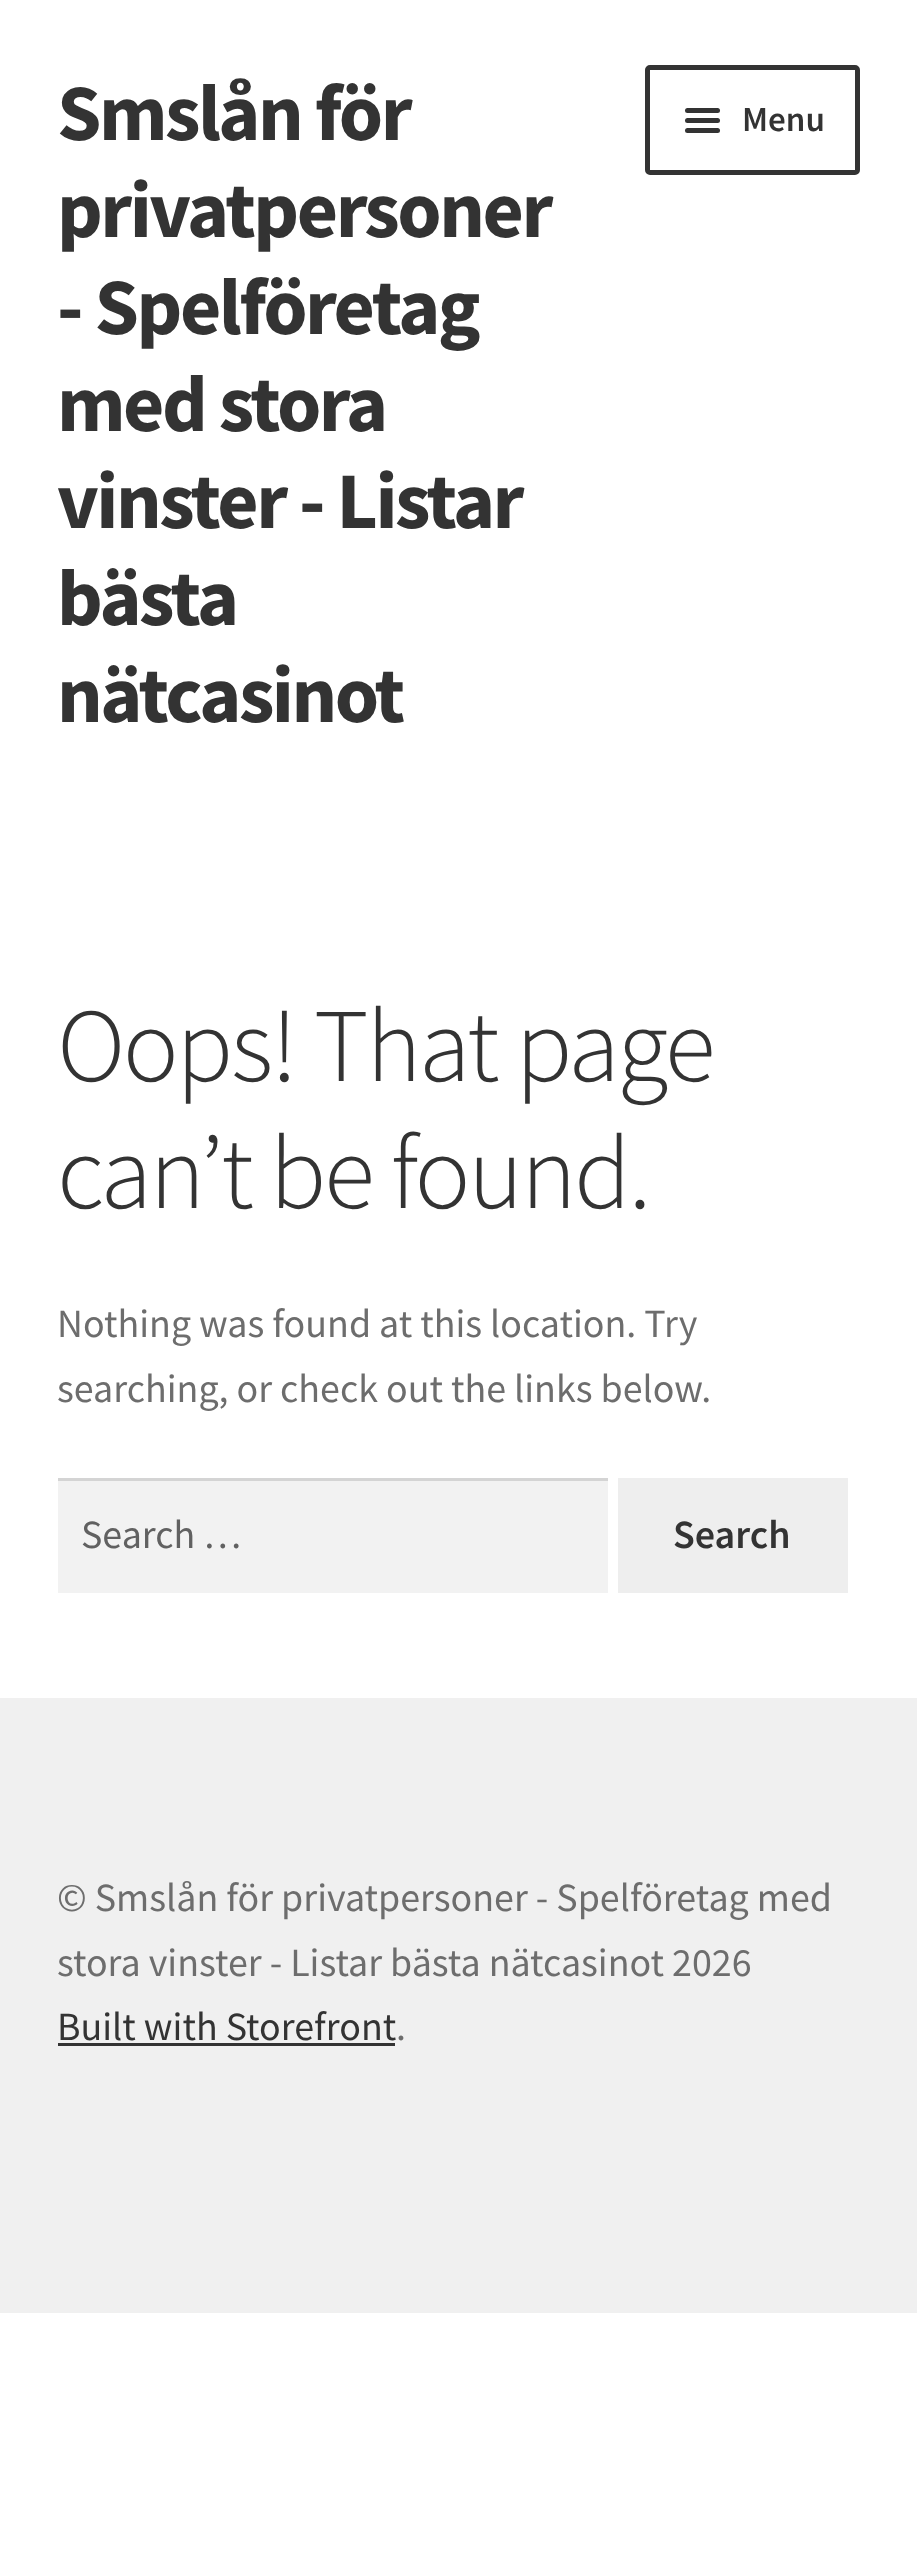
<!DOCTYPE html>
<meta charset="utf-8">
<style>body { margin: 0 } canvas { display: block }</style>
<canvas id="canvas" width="917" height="2569"></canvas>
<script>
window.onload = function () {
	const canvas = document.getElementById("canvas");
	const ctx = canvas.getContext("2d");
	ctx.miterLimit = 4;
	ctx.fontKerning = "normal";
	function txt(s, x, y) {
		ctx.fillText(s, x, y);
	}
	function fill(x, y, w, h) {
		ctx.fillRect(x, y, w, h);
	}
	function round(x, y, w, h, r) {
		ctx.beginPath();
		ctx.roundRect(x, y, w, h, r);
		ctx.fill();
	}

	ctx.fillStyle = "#FFFFFF";
	fill(0, 0, 917, 2569);
	ctx.beginPath();
	ctx.roundRect(647.5, 67.5, 210, 105, 2.5);
	ctx.strokeStyle = "#333333";
	ctx.lineWidth = 5;
	ctx.stroke();
	ctx.fillStyle = "#333333";
	round(685, 108, 35, 5, 2.5);
	round(685, 118, 35, 5, 2.5);
	round(685, 128, 35, 5, 2.5);
	ctx.fillStyle = "#F2F2F2";
	fill(58, 1481, 550, 112);
	ctx.fillStyle = "#D4D4D4";
	fill(58, 1478, 550, 3);
	ctx.fillStyle = "#EEEEEE";
	fill(618, 1478, 230, 115);
	ctx.fillStyle = "#F0F0F0";
	fill(0, 1698, 917, 615);
	ctx.fillStyle = "#333333";
	fill(58, 2043, 337, 3);
	ctx.letterSpacing = "-2.5px";
	ctx.font = "bold 80px Source Sans Pro";
	txt("Smslån för", 57, 140);
	txt("privatpersoner", 57, 237);
	txt("- Spelföretag", 57, 334);
	txt("med stora", 57, 431);
	txt("vinster - Listar", 57, 528);
	txt("bästa", 57, 625);
	txt("nätcasinot", 57, 722);
	ctx.letterSpacing = "0px";
	ctx.font = "600 35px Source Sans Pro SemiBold";
	txt("Menu", 742, 131);
	ctx.letterSpacing = "-2.5px";
	ctx.font = "300 104.75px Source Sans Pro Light";
	txt("Oops! That page", 57, 1081);
	txt("can’t be found.", 57, 1208);
	ctx.letterSpacing = "0px";
	ctx.font = "40px Source Sans Pro";
	ctx.fillStyle = "#6D6D6D";
	txt("Nothing was found at this location. Try", 57, 1337);
	txt("searching, or check out the links below.", 57, 1402);
	ctx.fillStyle = "#616161";
	txt("Search …", 81, 1548);
	ctx.font = "600 40px Source Sans Pro SemiBold";
	ctx.fillStyle = "#333333";
	txt("Search", 673, 1548);
	ctx.font = "40px Source Sans Pro";
	ctx.fillStyle = "#6D6D6D";
	txt("© Smslån för privatpersoner - Spelföretag med", 57, 1911);
	txt("stora vinster - Listar bästa nätcasinot 2026", 57, 1976);
	ctx.fillStyle = "#333333";
	txt("Built with Storefront", 57, 2040);
	ctx.fillStyle = "#6D6D6D";
	txt(".", 396, 2040);
};
</script>
